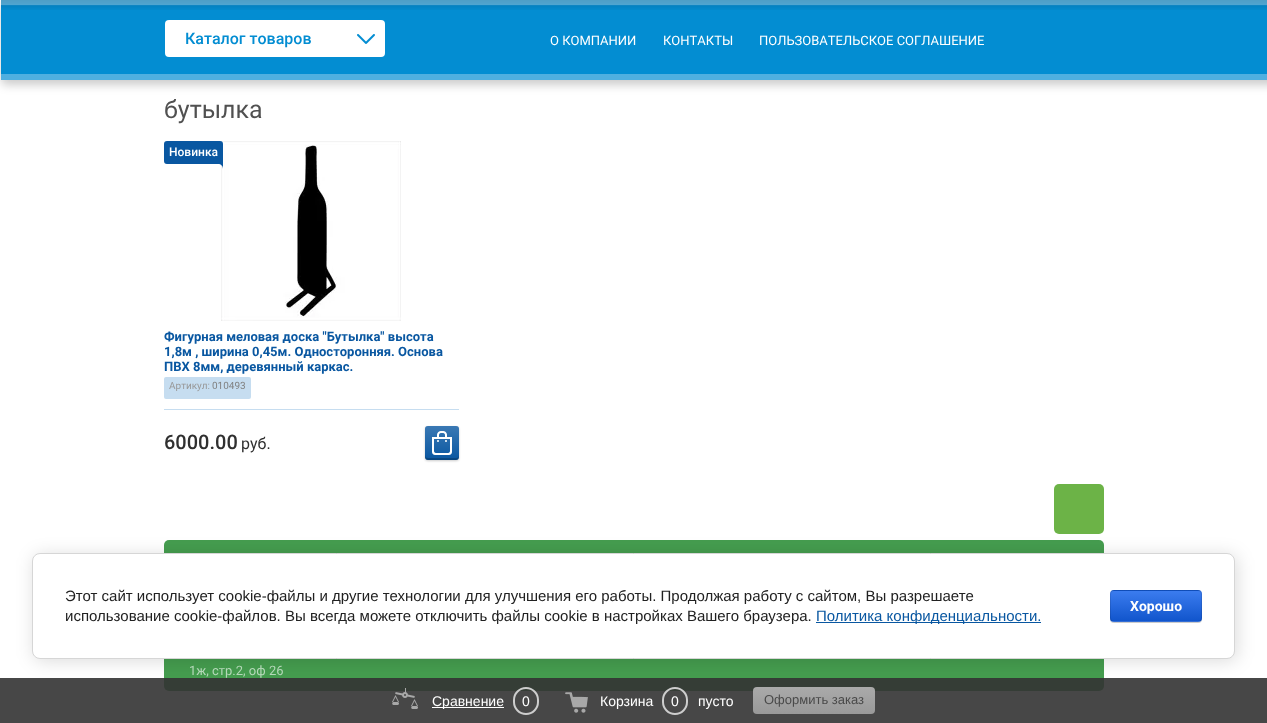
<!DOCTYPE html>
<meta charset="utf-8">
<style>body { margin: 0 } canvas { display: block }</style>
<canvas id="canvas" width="1267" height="723"></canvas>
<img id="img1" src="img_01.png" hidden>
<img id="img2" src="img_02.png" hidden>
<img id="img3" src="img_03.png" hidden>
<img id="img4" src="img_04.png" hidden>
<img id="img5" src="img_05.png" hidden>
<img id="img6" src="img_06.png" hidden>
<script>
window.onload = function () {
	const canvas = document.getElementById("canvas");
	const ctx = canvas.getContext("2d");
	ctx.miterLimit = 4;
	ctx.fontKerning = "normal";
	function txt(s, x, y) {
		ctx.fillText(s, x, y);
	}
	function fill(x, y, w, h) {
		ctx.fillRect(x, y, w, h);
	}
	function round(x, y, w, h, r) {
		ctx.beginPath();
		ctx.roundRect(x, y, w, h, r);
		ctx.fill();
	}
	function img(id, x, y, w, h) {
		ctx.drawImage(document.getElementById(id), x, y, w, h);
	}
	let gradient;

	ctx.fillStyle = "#FFFFFF";
	fill(0, 0, 1267, 723);
	ctx.fillStyle = "rgba(0, 0, 0, 0.2)";
	ctx.filter = "blur(5px)";
	ctx.beginPath();
	ctx.roundRect(1, 5, 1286, 80, 5);
	ctx.fill();
	ctx.filter = "none";
	ctx.fillStyle = "#038DD2";
	fill(1, 10, 1266, 64);
	img("img1", 1, 0, 1266, 10);
	ctx.fillStyle = "#FFFFFF";
	round(165, 20, 220, 37, 4);
	img("img2", 357, 34, 18, 10);
	ctx.fillStyle = "#459D4F";
	round(164, 540, 940, 151, 5);
	ctx.fillStyle = "rgba(51, 51, 51, 0.9)";
	fill(0, 678, 1267, 45);
	img("img3", 392, 688, 26, 21);
	ctx.fillStyle = "#FFFFFF";
	fill(432, 707, 72, 1);
	ctx.beginPath();
	ctx.roundRect(514, 688, 24, 26, 12);
	ctx.strokeStyle = "#CDCDCD";
	ctx.lineWidth = 2;
	ctx.stroke();
	img("img4", 565, 692, 23, 21);
	ctx.beginPath();
	ctx.roundRect(663, 688, 24, 26, 12);
	ctx.stroke();
	gradient = ctx.createLinearGradient(814, 687, 814, 714);
	gradient.addColorStop(0, "#AAAAAA");
	gradient.addColorStop(1, "#999999");
	ctx.fillStyle = gradient;
	round(753, 687, 122, 27, 4);
	ctx.fillStyle = "#4FAFE0";
	fill(1, 74, 1266, 6);
	img("img5", 221, 141, 180, 180);
	ctx.fillStyle = "#0957A1";
	ctx.beginPath();
	ctx.moveTo(223, 164);
	ctx.lineTo(223, 169);
	ctx.bezierCurveTo(223, 166, 221, 164, 218, 164);
	ctx.lineTo(167, 164);
	ctx.bezierCurveTo(165, 164, 164, 163, 164, 161);
	ctx.lineTo(164, 144);
	ctx.bezierCurveTo(164, 142, 165, 141, 167, 141);
	ctx.lineTo(220, 141);
	ctx.bezierCurveTo(222, 141, 223, 142, 223, 144);
	ctx.closePath();
	ctx.fill();
	ctx.fillStyle = "#C6DDF0";
	round(164, 377, 87, 22, 2);
	fill(164, 409, 295, 1);
	ctx.fillStyle = "rgba(0, 0, 0, 0.2)";
	ctx.filter = "blur(1px)";
	ctx.beginPath();
	ctx.roundRect(425, 427, 34, 34, 3);
	ctx.fill();
	ctx.filter = "none";
	ctx.fillStyle = "#0957A1";
	round(425, 426, 34, 34, 3);
	gradient = ctx.createLinearGradient(442, 460, 442, 426);
	gradient.addColorStop(0, "rgba(255, 255, 255, 0)");
	gradient.addColorStop(1, "rgba(255, 255, 255, 0.2)");
	ctx.fillStyle = gradient;
	round(425, 426, 34, 34, 3);
	ctx.fillStyle = "rgba(0, 0, 0, 0.2)";
	ctx.beginPath();
	ctx.moveTo(425, 455);
	ctx.bezierCurveTo(425, 461, 427, 460, 432.5, 460);
	ctx.lineTo(451.5, 460);
	ctx.bezierCurveTo(457, 460, 459, 461, 459, 455);
	ctx.bezierCurveTo(459, 457, 458, 458, 456, 458);
	ctx.lineTo(428, 458);
	ctx.bezierCurveTo(426, 458, 425, 457, 425, 455);
	ctx.closePath();
	ctx.fill();
	img("img6", 432, 431, 20, 24);
	ctx.fillStyle = "#6CB347";
	round(1054, 484, 50, 50, 5);
	ctx.fillStyle = "rgba(0, 0, 0, 0.14)";
	ctx.filter = "blur(9px)";
	ctx.beginPath();
	ctx.roundRect(34, 555, 1203, 106, 8);
	ctx.fill();
	ctx.filter = "none";
	ctx.fillStyle = "#FFFFFF";
	ctx.beginPath();
	ctx.roundRect(32.5, 553.5, 1202, 105, 7.5);
	ctx.fill();
	ctx.strokeStyle = "#D6D6D6";
	ctx.lineWidth = 1;
	ctx.stroke();
	ctx.fillStyle = "#0957A1";
	fill(816, 622, 225, 1);
	ctx.fillStyle = "rgba(0, 0, 0, 0.2)";
	ctx.filter = "blur(0.5px)";
	ctx.beginPath();
	ctx.roundRect(1110, 591, 92, 32, 4);
	ctx.fill();
	ctx.filter = "none";
	ctx.save();
	ctx.beginPath();
	ctx.roundRect(1110, 590, 92, 32, 4);
	ctx.clip();
	gradient = ctx.createLinearGradient(1156, 561, 1156, 591);
	gradient.addColorStop(0, "#3B7CEF");
	gradient.addColorStop(1, "#1155CC");
	ctx.fillStyle = gradient;
	fill(1110, 590, 92, 1);
	gradient = ctx.createLinearGradient(1156, 591, 1156, 621);
	gradient.addColorStop(0, "#3B7CEF");
	gradient.addColorStop(1, "#1155CC");
	ctx.fillStyle = gradient;
	fill(1110, 591, 92, 30);
	gradient = ctx.createLinearGradient(1156, 621, 1156, 651);
	gradient.addColorStop(0, "#3B7CEF");
	gradient.addColorStop(1, "#1155CC");
	ctx.fillStyle = gradient;
	fill(1110, 621, 92, 1);
	ctx.restore();
	ctx.beginPath();
	ctx.roundRect(1110.5, 590.5, 91, 31, 3.5);
	ctx.strokeStyle = "rgba(0, 0, 0, 0.1)";
	ctx.stroke();
	ctx.font = "500 16px Roboto";
	ctx.fillStyle = "#038DD2";
	txt("Каталог товаров", 185, 44);
	ctx.font = "14px Liberation Sans";
	ctx.fillStyle = "#FFFFFF";
	txt("Сравнение", 432, 706);
	txt("0", 522, 706);
	txt("Корзина", 600, 706);
	txt("0", 671, 706);
	txt("пусто", 698, 706);
	ctx.font = "13px Liberation Sans";
	ctx.fillStyle = "#494949";
	txt("Оформить заказ", 764, 704);
	ctx.font = "13px roboto";
	ctx.fillStyle = "#FFFFFF";
	txt("О КОМПАНИИ", 550, 45);
	txt("КОНТАКТЫ", 663, 45);
	txt("ПОЛЬЗОВАТЕЛЬСКОЕ СОГЛАШЕНИЕ", 759, 45);
	ctx.font = "25px roboto";
	ctx.fillStyle = "#505050";
	txt("бутылка", 164, 118);
	ctx.font = "500 12px Roboto";
	ctx.fillStyle = "#FFFFFF";
	txt("Новинка", 169, 156);
	ctx.font = "bold 13px roboto";
	ctx.fillStyle = "#0957A1";
	txt("Фигурная меловая доска \"Бутылка\" высота", 164, 341);
	txt("1,8м , ширина 0,45м. Односторонняя. Основа", 164, 356);
	txt("ПВХ 8мм, деревянный каркас.", 164, 371);
	ctx.font = "10px roboto";
	ctx.fillStyle = "#999999";
	txt("Артикул:", 169, 389);
	ctx.fillStyle = "#818181";
	txt("010493", 212, 389);
	ctx.font = "500 20px Roboto";
	ctx.fillStyle = "#303030";
	txt("6000.00", 164, 449);
	ctx.font = "16px roboto";
	txt("руб.", 241, 449);
	ctx.font = "15px Liberation Sans";
	ctx.fillStyle = "#212121";
	txt("Этот сайт использует cookie-файлы и другие технологии для улучшения его работы. Продолжая работу с сайтом, Вы разрешаете", 65, 601);
	txt("использование cookie-файлов. Вы всегда можете отключить файлы cookie в настройках Вашего браузера.", 65, 621);
	ctx.fillStyle = "#0957A1";
	txt("Политика конфиденциальности.", 816, 621);
	ctx.font = "bold 14px roboto";
	ctx.fillStyle = "#FFFFFF";
	txt("Хорошо", 1130, 611);
	ctx.font = "13px roboto";
	ctx.fillStyle = "#B5D8B9";
	txt("1ж, стр.2, оф 26", 189, 675);
};
</script>
